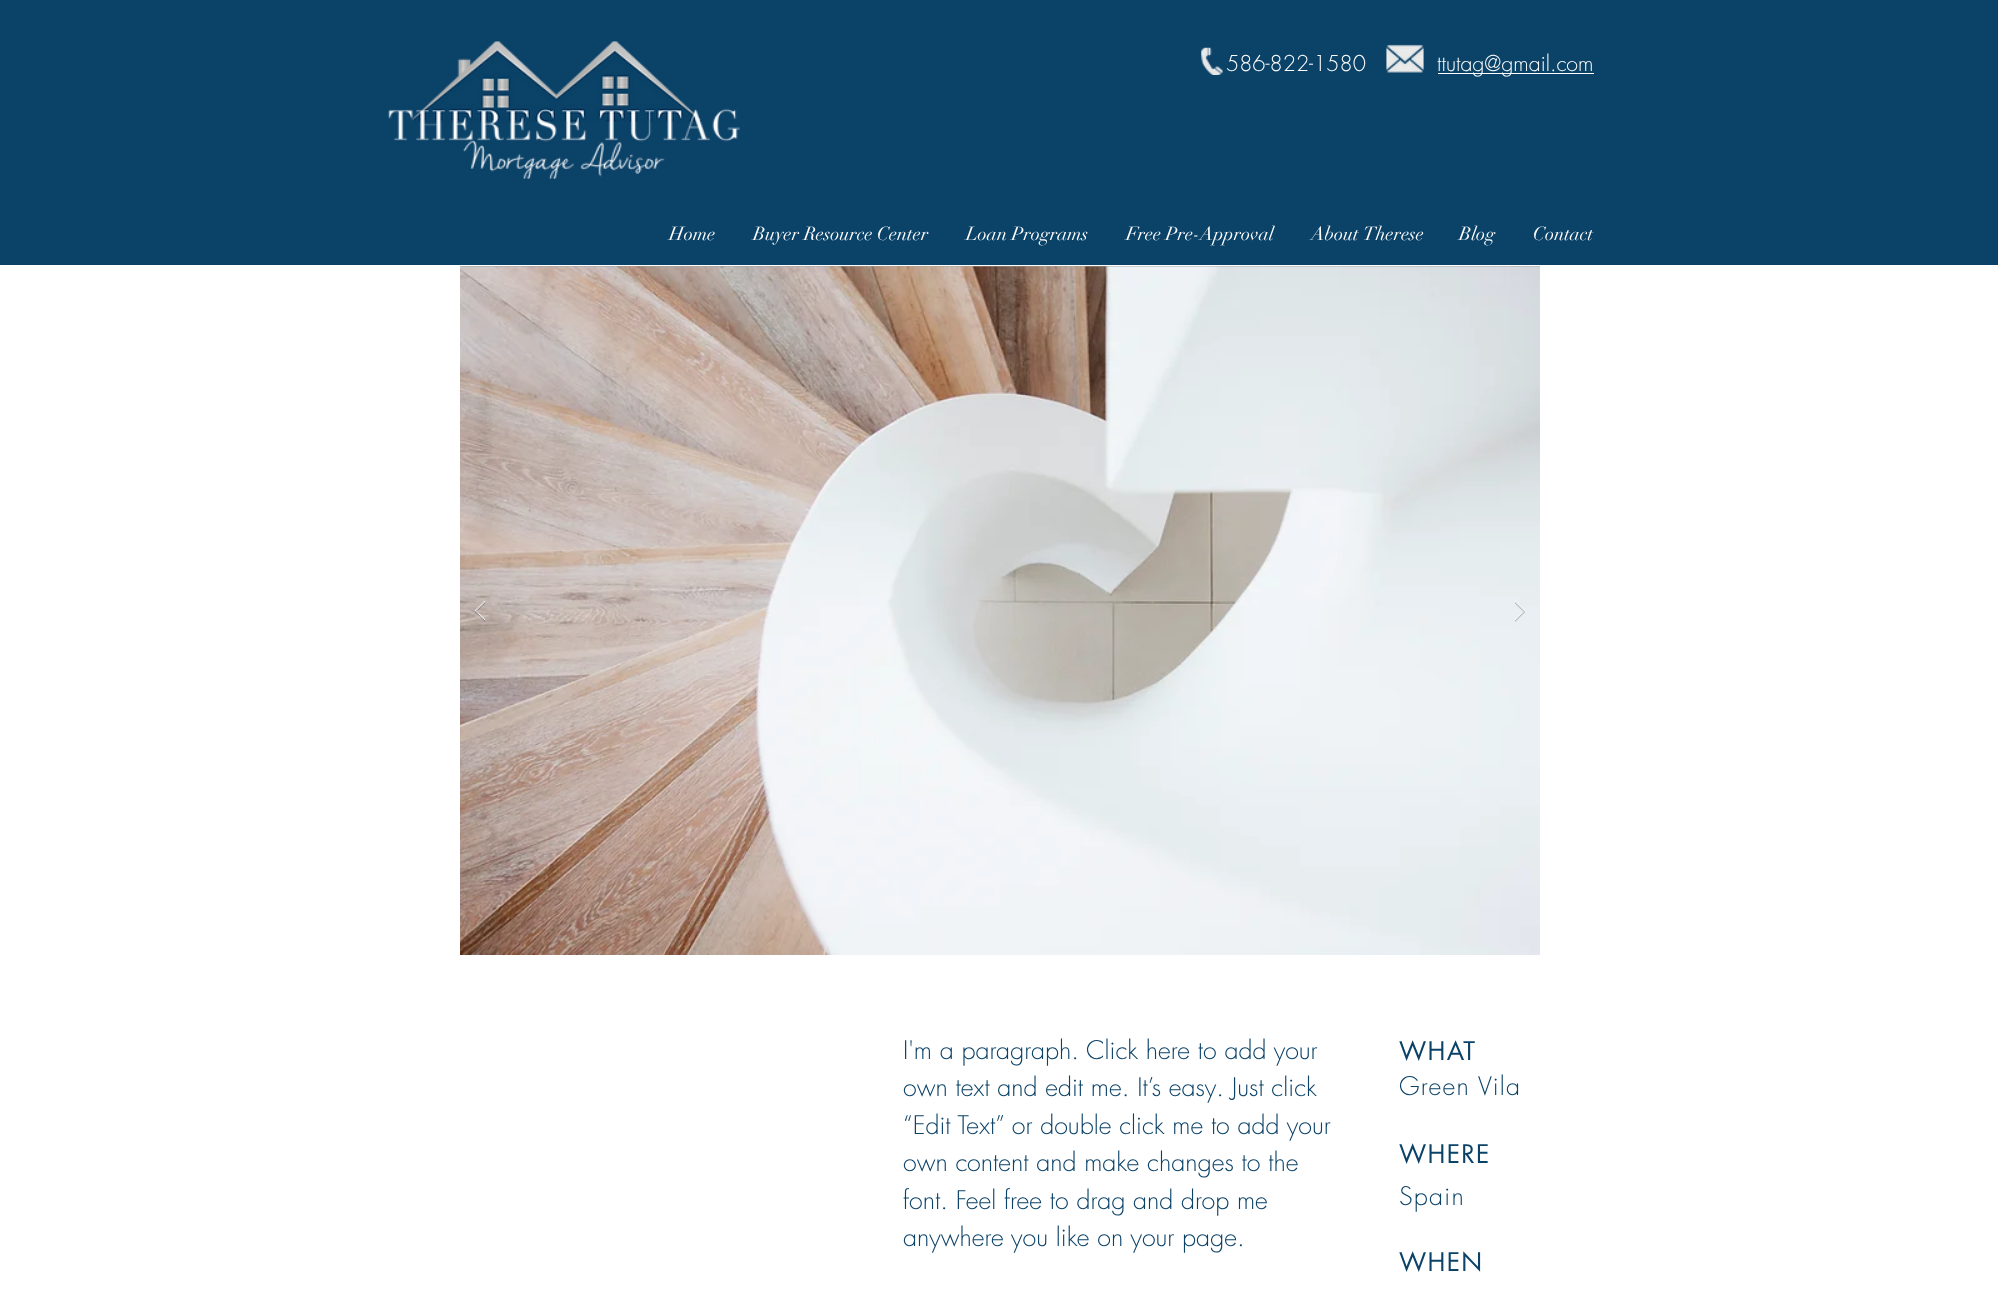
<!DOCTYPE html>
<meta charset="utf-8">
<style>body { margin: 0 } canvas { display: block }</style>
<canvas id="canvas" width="1998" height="1304"></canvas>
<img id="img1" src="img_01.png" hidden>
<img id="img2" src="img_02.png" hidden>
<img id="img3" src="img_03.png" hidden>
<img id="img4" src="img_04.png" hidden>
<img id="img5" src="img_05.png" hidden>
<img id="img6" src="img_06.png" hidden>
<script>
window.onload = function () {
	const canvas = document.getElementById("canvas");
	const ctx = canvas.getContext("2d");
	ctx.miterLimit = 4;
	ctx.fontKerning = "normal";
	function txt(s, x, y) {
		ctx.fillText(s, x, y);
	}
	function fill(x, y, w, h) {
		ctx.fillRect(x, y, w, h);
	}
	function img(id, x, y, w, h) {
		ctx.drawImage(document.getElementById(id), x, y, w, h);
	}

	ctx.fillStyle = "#FFFFFF";
	fill(0, 0, 1998, 1304);
	ctx.fillStyle = "#0B4268";
	fill(0, 0, 1998, 265);
	img("img1", 388, 41, 353, 138);
	img("img2", 1201, 47, 22, 28);
	img("img3", 1386, 44, 38, 29);
	ctx.fillStyle = "#FFFFFF";
	fill(1438, 73, 156, 1);
	ctx.fillStyle = "#A0A09F";
	fill(460, 266, 1080, 1);
	img("img4", 460, 266, 1080, 689);
	img("img5", 475, 601, 10, 21);
	img("img6", 1515, 601, 10, 21);
	ctx.font = "300 21.25px futura";
	ctx.fillStyle = "#FFFFFF";
	txt("586-822-1580", 1226, 71);
	txt("ttutag@gmail.com", 1437, 71);
	ctx.font = "18.75px didot";
	txt("Home", 669, 240);
	txt("Buyer Resource Center", 753, 240);
	txt("Loan Programs", 966, 240);
	txt("Free Pre-Approval", 1126, 240);
	txt("About Therese", 1311, 240);
	txt("Blog", 1459, 240);
	txt("Contact", 1533, 240);
	ctx.font = "300 25px futura";
	ctx.fillStyle = "#0B4268";
	txt("I'm a paragraph. Click here to add your", 903, 1059);
	txt("own text and edit me. It’s easy. Just click", 903, 1096);
	txt("“Edit Text” or double click me to add your", 903, 1134);
	txt("own content and make changes to the", 903, 1171);
	txt("font. Feel free to drag and drop me", 903, 1209);
	txt("anywhere you like on your page.", 903, 1246);
	ctx.letterSpacing = "1.25px";
	ctx.font = "25px futura";
	txt("WHAT", 1399, 1060);
	ctx.font = "300 25px futura";
	txt("Green Vila", 1399, 1095);
	ctx.font = "25px futura";
	txt("WHERE", 1399, 1163);
	ctx.font = "300 25px futura";
	txt("Spain", 1399, 1205);
	ctx.font = "25px futura";
	txt("WHEN", 1399, 1271);
};
</script>
